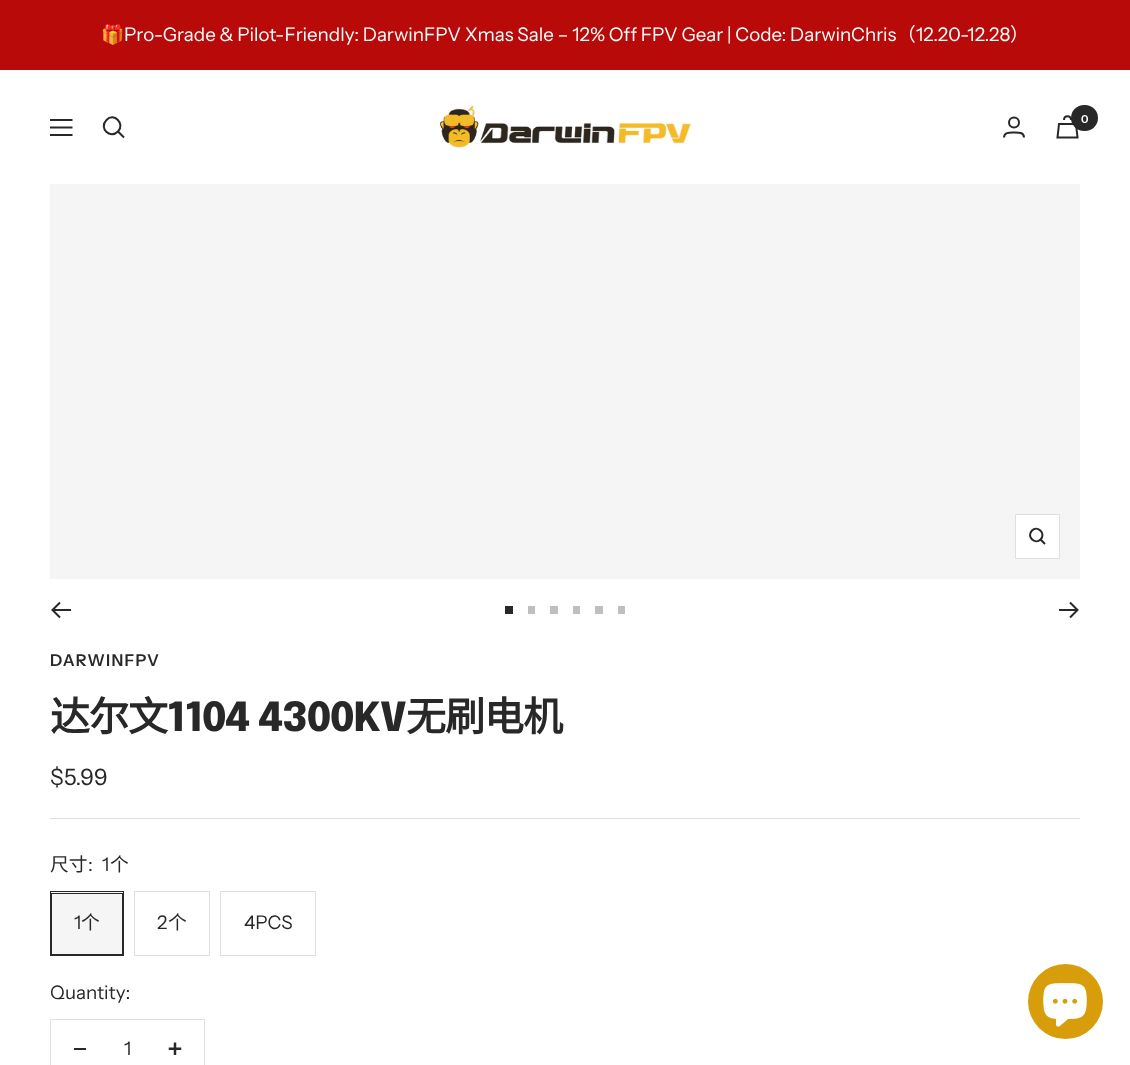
<!DOCTYPE html>
<meta charset="utf-8">
<style>body { margin: 0 } canvas { display: block }</style>
<canvas id="canvas" width="1130" height="1065"></canvas>
<img id="img1" src="img_01.png" hidden>
<img id="img2" src="img_02.png" hidden>
<img id="img3" src="img_03.png" hidden>
<script>
window.onload = function () {
	const canvas = document.getElementById("canvas");
	const ctx = canvas.getContext("2d");
	ctx.miterLimit = 4;
	ctx.fontKerning = "normal";
	function txt(s, x, y) {
		ctx.fillText(s, x, y);
	}
	function fill(x, y, w, h) {
		ctx.fillRect(x, y, w, h);
	}
	function round(x, y, w, h, r) {
		ctx.beginPath();
		ctx.roundRect(x, y, w, h, r);
		ctx.fill();
	}
	function img(id, x, y, w, h) {
		ctx.drawImage(document.getElementById(id), x, y, w, h);
	}

	ctx.fillStyle = "#FFFFFF";
	fill(0, 0, 1130, 1065);
	ctx.fillStyle = "#B90A0A";
	fill(0, 0, 1130, 70);
	ctx.beginPath();
	ctx.moveTo(50, 120);
	ctx.lineTo(72.5, 120);
	ctx.moveTo(50, 135);
	ctx.lineTo(72.5, 135);
	ctx.closePath();
	ctx.moveTo(50, 127.5);
	ctx.lineTo(72.5, 127.5);
	ctx.closePath();
	ctx.strokeStyle = "#282828";
	ctx.lineWidth = 2;
	ctx.stroke();
	ctx.beginPath();
	ctx.moveTo(118, 131.5);
	ctx.bezierCurveTo(125.5, 124, 114, 112, 106.5, 120);
	ctx.bezierCurveTo(98.5, 128, 110, 139.5, 118, 131.5);
	ctx.closePath();
	ctx.moveTo(118, 131.5);
	ctx.lineTo(124, 137.5);
	ctx.stroke();
	img("img1", 439, 105, 252, 43);
	ctx.beginPath();
	ctx.arc(1014, 122.5, 5, 0, Math.PI * 2);
	ctx.stroke();
	ctx.beginPath();
	ctx.moveTo(1004, 137.5);
	ctx.bezierCurveTo(1004, 132, 1010, 132.5, 1014, 132.5);
	ctx.bezierCurveTo(1017.5, 132.5, 1024, 132, 1024, 137.5);
	ctx.stroke();
	ctx.beginPath();
	ctx.moveTo(1059, 124);
	ctx.lineTo(1076, 124);
	ctx.lineTo(1077.5, 137.5);
	ctx.lineTo(1057.5, 137.5);
	ctx.closePath();
	ctx.moveTo(1071, 120);
	ctx.bezierCurveTo(1071, 115, 1064, 115, 1064, 120);
	ctx.stroke();
	ctx.fillStyle = "#282828";
	round(1071, 105, 27, 26, 13);
	ctx.fillStyle = "#F5F5F5";
	fill(50, 184, 1030, 395);
	ctx.fillStyle = "#FFFFFF";
	ctx.beginPath();
	ctx.rect(1015.5, 514.5, 44, 44);
	ctx.fill();
	ctx.strokeStyle = "#DFDFDF";
	ctx.lineWidth = 1;
	ctx.stroke();
	ctx.beginPath();
	ctx.moveTo(1040.5, 539.5);
	ctx.bezierCurveTo(1046.5, 533.5, 1037.5, 525, 1032, 530.5);
	ctx.bezierCurveTo(1026, 536.5, 1035, 545, 1040.5, 539.5);
	ctx.closePath();
	ctx.moveTo(1040.5, 539.5);
	ctx.lineTo(1045, 544);
	ctx.strokeStyle = "#282828";
	ctx.lineWidth = 2;
	ctx.stroke();
	ctx.beginPath();
	ctx.moveTo(71, 610);
	ctx.lineTo(52.5, 610);
	ctx.moveTo(60, 602.5);
	ctx.lineTo(52.5, 610);
	ctx.lineTo(60, 617.5);
	ctx.stroke();
	ctx.fillStyle = "#282828";
	fill(505, 606, 8, 8);
	ctx.fillStyle = "#BFBFBF";
	fill(528, 606, 7, 8);
	fill(550, 606, 8, 8);
	fill(573, 606, 7, 8);
	fill(595, 606, 8, 8);
	fill(618, 606, 7, 8);
	ctx.beginPath();
	ctx.moveTo(1059, 610);
	ctx.lineTo(1077.5, 610);
	ctx.moveTo(1070, 602.5);
	ctx.lineTo(1077.5, 610);
	ctx.lineTo(1070, 617.5);
	ctx.stroke();
	ctx.fillStyle = "#DFDFDF";
	fill(50, 818, 1030, 1);
	ctx.fillStyle = "#F5F5F5";
	fill(51, 892, 72, 62);
	ctx.lineWidth = 1;
	ctx.strokeRect(50.5, 891.5, 73, 64);
	ctx.strokeRect(51.5, 893.5, 71, 61);
	ctx.strokeStyle = "#DFDFDF";
	ctx.strokeRect(134.5, 891.5, 75, 64);
	ctx.strokeRect(220.5, 891.5, 95, 64);
	ctx.strokeRect(50.5, 1019.5, 154, 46);
	ctx.fillStyle = "#282828";
	fill(74, 1048, 12, 2);
	img("img2", 168, 1042, 14, 13);
	ctx.fillStyle = "#D79D0B";
	ctx.beginPath();
	ctx.arc(1065.5, 1001.5, 37.5, 0, Math.PI * 2);
	ctx.fill();
	img("img3", 1043, 983, 44, 44);
	ctx.font = "18.75px Noto Color Emoji";
	ctx.fillStyle = "#FFFFFF";
	txt("🎁", 101, 41);
	ctx.font = "18.75px Instrument Sans";
	txt("Pro-Grade & Pilot-Friendly: DarwinFPV Xmas Sale – 12% Off FPV Gear | Code: DarwinChris", 124, 41);
	ctx.font = "18.75px Noto Sans CJK SC";
	txt("（", 897, 41);
	ctx.font = "18.75px Instrument Sans";
	txt("12.20-12.28", 916, 41);
	ctx.font = "18.75px Noto Sans CJK SC";
	txt("）", 1010, 41);
	ctx.font = "600 11px Instrument Sans";
	txt("0", 1081, 123);
	ctx.letterSpacing = "1.25px";
	ctx.font = "600 16.25px Instrument Sans";
	ctx.fillStyle = "#282828";
	txt("DARWINFPV", 50, 666);
	ctx.letterSpacing = "-1px";
	ctx.font = "bold 40px Noto Sans CJK SC";
	txt("达尔文", 50, 731);
	ctx.font = "800 40px Epilogue";
	txt("1104 4300KV", 167, 731);
	ctx.font = "bold 40px Noto Sans CJK SC";
	txt("无刷电机", 406, 731);
	ctx.letterSpacing = "0px";
	ctx.font = "22.5px Instrument Sans";
	txt("$5.99", 50, 785);
	ctx.font = "18.75px Noto Sans CJK SC";
	txt("尺寸", 50, 871);
	ctx.font = "18.75px Instrument Sans";
	txt(":", 88, 871);
	txt("1", 102, 871);
	ctx.font = "18.75px Noto Sans CJK SC";
	txt("个", 110, 871);
	ctx.font = "18.75px Instrument Sans";
	txt("1", 74, 929);
	ctx.font = "18.75px Noto Sans CJK SC";
	txt("个", 81, 929);
	ctx.font = "18.75px Instrument Sans";
	txt("2", 157, 929);
	ctx.font = "18.75px Noto Sans CJK SC";
	txt("个", 168, 929);
	ctx.font = "18.75px Instrument Sans";
	txt("4PCS", 244, 929);
	txt("Quantity:", 50, 999);
	txt("1", 124, 1055);
};
</script>
